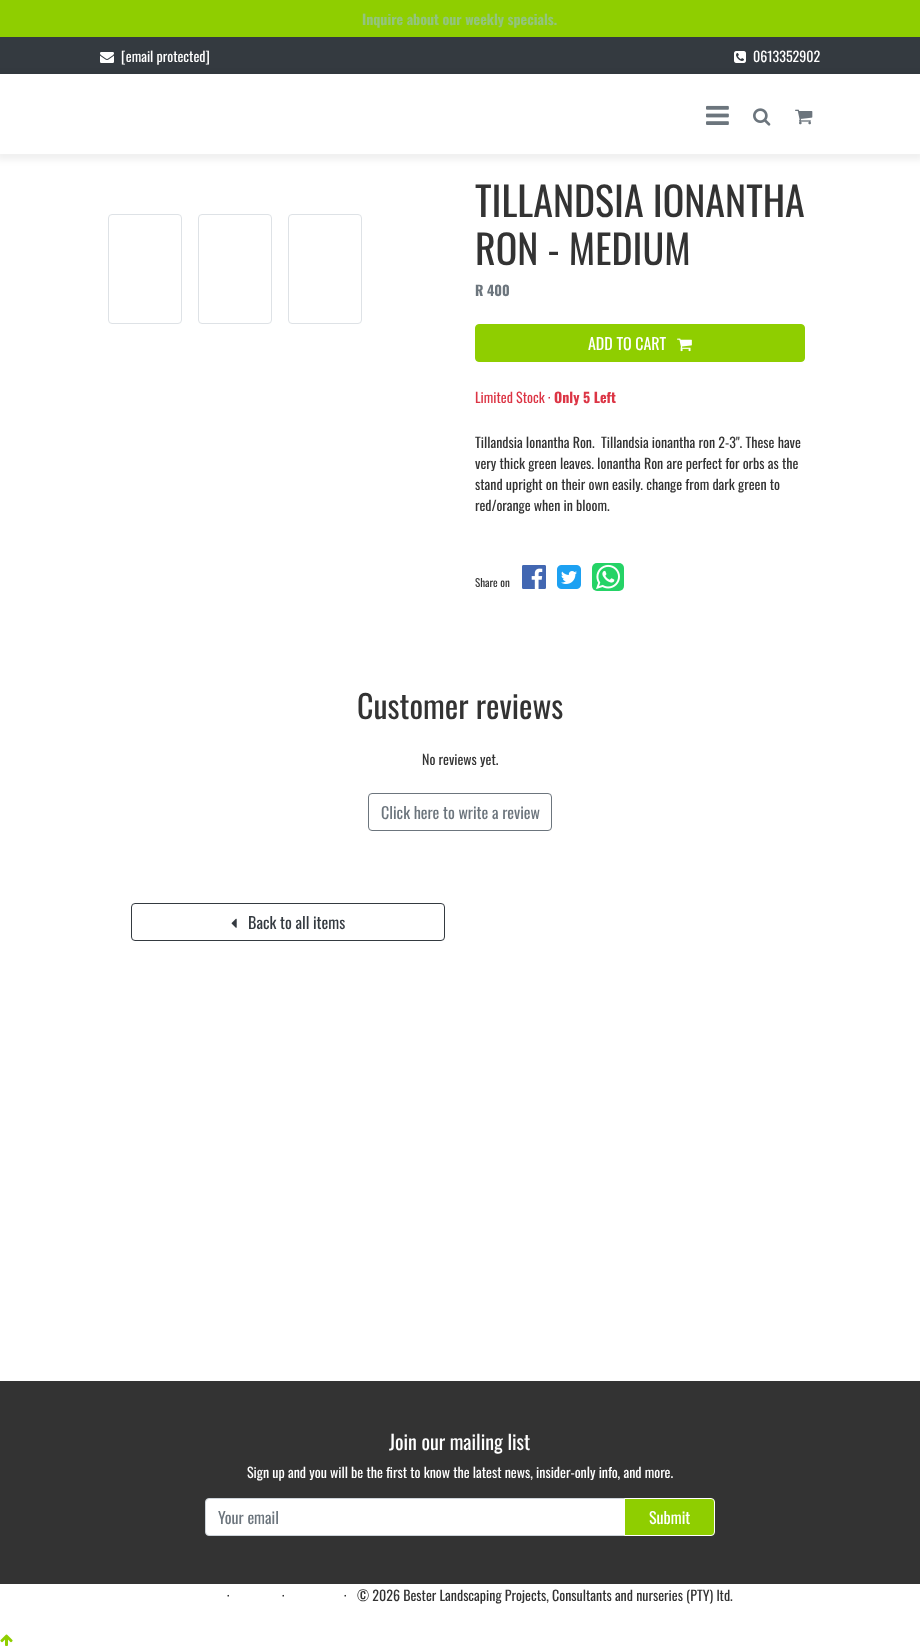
<!DOCTYPE html>
<meta charset="utf-8">
<style>body { margin: 0 } canvas { display: block }</style>
<canvas id="canvas" width="920" height="1649"></canvas>
<img id="img1" src="img_01.png" hidden>
<img id="img2" src="img_02.png" hidden>
<img id="img3" src="img_03.png" hidden>
<img id="img4" src="img_04.png" hidden>
<img id="img5" src="img_05.png" hidden>
<img id="img6" src="img_06.png" hidden>
<img id="img7" src="img_07.png" hidden>
<img id="img8" src="img_08.png" hidden>
<img id="img9" src="img_09.png" hidden>
<img id="img10" src="img_10.png" hidden>
<img id="img11" src="img_11.png" hidden>
<script>
window.onload = function () {
	const canvas = document.getElementById("canvas");
	const ctx = canvas.getContext("2d");
	ctx.miterLimit = 4;
	ctx.fontKerning = "normal";
	function txt(s, x, y) {
		ctx.fillText(s, x, y);
	}
	function fill(x, y, w, h) {
		ctx.fillRect(x, y, w, h);
	}
	function round(x, y, w, h, r) {
		ctx.beginPath();
		ctx.roundRect(x, y, w, h, r);
		ctx.fill();
	}
	function img(id, x, y, w, h) {
		ctx.drawImage(document.getElementById(id), x, y, w, h);
	}

	ctx.fillStyle = "#FFFFFF";
	fill(0, 0, 920, 1649);
	ctx.fillStyle = "#8FCE00";
	fill(0, 0, 920, 37);
	ctx.fillStyle = "#343A40";
	fill(0, 37, 920, 37);
	img("img1", 100, 52, 14, 11);
	img("img2", 734, 51, 12, 12);
	ctx.save();
	ctx.beginPath();
	ctx.moveTo(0, 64);
	ctx.lineTo(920, 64);
	ctx.lineTo(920, 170);
	ctx.lineTo(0, 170);
	ctx.closePath();
	ctx.moveTo(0, 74);
	ctx.lineTo(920, 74);
	ctx.lineTo(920, 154);
	ctx.lineTo(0, 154);
	ctx.closePath();
	ctx.clip("evenodd");
	ctx.fillStyle = "rgba(0, 0, 0, 0.06)";
	ctx.filter = "blur(3px)";
	ctx.beginPath();
	ctx.rect(-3, 74, 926, 86);
	ctx.fill();
	ctx.filter = "none";
	ctx.restore();
	img("img3", 706, 105, 23, 20);
	img("img4", 753, 108, 18, 18);
	img("img5", 795, 109, 18, 16);
	ctx.beginPath();
	ctx.roundRect(108.5, 214.5, 73, 109, 3.5);
	ctx.strokeStyle = "#DEE2E6";
	ctx.stroke();
	ctx.beginPath();
	ctx.roundRect(198.5, 214.5, 73, 109, 3.5);
	ctx.stroke();
	ctx.beginPath();
	ctx.roundRect(288.5, 214.5, 73, 109, 3.5);
	ctx.stroke();
	ctx.fillStyle = "#8FCE00";
	ctx.beginPath();
	ctx.roundRect(475.5, 324.5, 329, 37, 3.5);
	ctx.fill();
	ctx.strokeStyle = "#8FCE00";
	ctx.stroke();
	img("img6", 677, 338, 15, 14);
	img("img7", 522, 565, 24, 24);
	img("img8", 557, 565, 24, 24);
	ctx.fillStyle = "#25D366";
	round(592, 563, 32, 28, 5);
	img("img9", 596, 564, 24, 25);
	ctx.beginPath();
	ctx.roundRect(368.5, 793.5, 183, 37, 3.5);
	ctx.strokeStyle = "#6C757D";
	ctx.stroke();
	ctx.beginPath();
	ctx.roundRect(131.5, 903.5, 313, 37, 3.5);
	ctx.strokeStyle = "#343A40";
	ctx.stroke();
	img("img10", 231, 918, 6, 10);
	ctx.fillStyle = "#333333";
	fill(0, 1381, 920, 203);
	ctx.fillStyle = "#FFFFFF";
	ctx.beginPath();
	ctx.roundRect(205.5, 1498.5, 419, 37, [3.5, 0, 0, 3.5]);
	ctx.fill();
	ctx.strokeStyle = "#CED4DA";
	ctx.stroke();
	ctx.fillStyle = "#8FCE00";
	ctx.beginPath();
	ctx.roundRect(624.5, 1498.5, 90, 37, [0, 3.5, 3.5, 0]);
	ctx.fill();
	ctx.strokeStyle = "#FFFFFF";
	ctx.stroke();
	img("img11", 0, 1634, 13, 12);
	ctx.font = "bold 14px Oswald";
	ctx.fillStyle = "#93C47D";
	txt("Inquire about our weekly specials.", 362, 25);
	ctx.font = "14px Oswald";
	ctx.fillStyle = "#FFFFFF";
	txt("[email protected]", 121, 62);
	txt("0613352902", 753, 62);
	ctx.font = "40px Oswald";
	ctx.fillStyle = "#333333";
	txt("TILLANDSIA IONANTHA", 475, 217);
	txt("RON - MEDIUM", 475, 265);
	ctx.font = "bold 14px Oswald";
	ctx.fillStyle = "#6C757D";
	txt("R 400", 475, 296);
	ctx.font = "16px Oswald";
	ctx.fillStyle = "#FFFFFF";
	txt("ADD TO CART", 588, 350);
	ctx.font = "14px Oswald";
	ctx.fillStyle = "#DC3545";
	txt("Limited Stock ·", 475, 403);
	ctx.font = "bold 14px Oswald";
	txt("Only 5 Left", 554, 403);
	ctx.font = "14px Oswald";
	ctx.fillStyle = "#333333";
	txt("Tillandsia Ionantha Ron.  Tillandsia ionantha ron 2-3\". These have", 475, 448);
	txt("very thick green leaves. Ionantha Ron are perfect for orbs as the", 475, 469);
	txt("stand upright on their own easily. change from dark green to", 475, 490);
	txt("red/orange when in bloom.", 475, 511);
	ctx.font = "11px Oswald";
	txt("Share on", 475, 587);
	ctx.font = "32px Oswald";
	txt("Customer reviews", 357, 719);
	ctx.font = "14px Oswald";
	txt("No reviews yet.", 422, 765);
	ctx.font = "16px Oswald";
	ctx.fillStyle = "#6C757D";
	txt("Click here to write a review", 381, 819);
	ctx.fillStyle = "#343A40";
	txt("Back to all items", 248, 929);
	ctx.font = "20px Oswald";
	ctx.fillStyle = "#FFFFFF";
	txt("Join our mailing list", 389, 1450);
	ctx.font = "14px Oswald";
	txt("Sign up and you will be the first to know the latest news, insider-only info, and more.", 247, 1478);
	ctx.font = "16px Oswald";
	ctx.fillStyle = "#6C757D";
	txt("Your email", 218, 1524);
	ctx.fillStyle = "#FFFFFF";
	txt("Submit", 649, 1524);
	ctx.font = "14px Oswald";
	ctx.fillStyle = "#333333";
	txt("·", 227, 1601);
	txt("·", 282, 1601);
	txt("·", 344, 1601);
	txt("© 2026 Bester Landscaping Projects, Consultants and nurseries (PTY) ltd.", 357, 1601);
};
</script>
